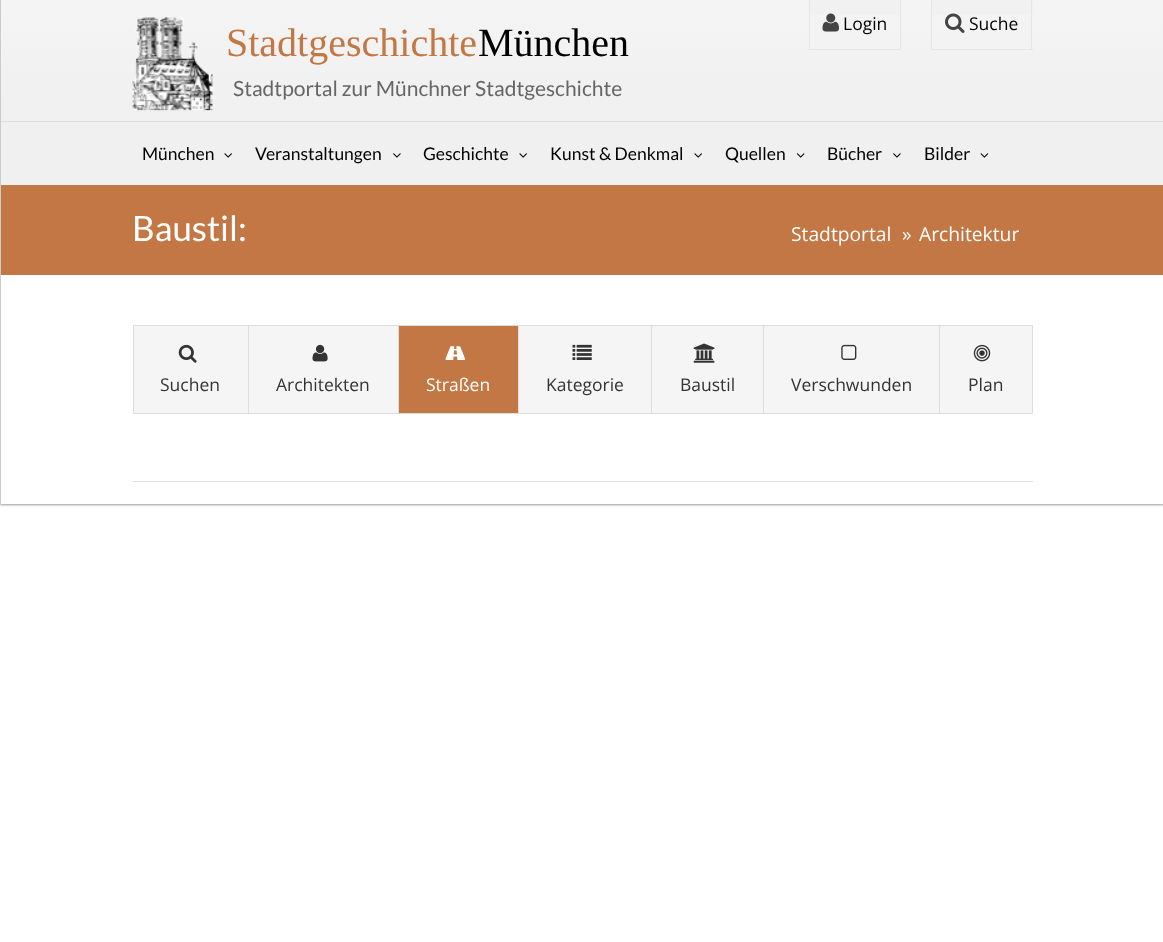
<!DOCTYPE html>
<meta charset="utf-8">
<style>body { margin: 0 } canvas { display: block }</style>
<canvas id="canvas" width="1163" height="942"></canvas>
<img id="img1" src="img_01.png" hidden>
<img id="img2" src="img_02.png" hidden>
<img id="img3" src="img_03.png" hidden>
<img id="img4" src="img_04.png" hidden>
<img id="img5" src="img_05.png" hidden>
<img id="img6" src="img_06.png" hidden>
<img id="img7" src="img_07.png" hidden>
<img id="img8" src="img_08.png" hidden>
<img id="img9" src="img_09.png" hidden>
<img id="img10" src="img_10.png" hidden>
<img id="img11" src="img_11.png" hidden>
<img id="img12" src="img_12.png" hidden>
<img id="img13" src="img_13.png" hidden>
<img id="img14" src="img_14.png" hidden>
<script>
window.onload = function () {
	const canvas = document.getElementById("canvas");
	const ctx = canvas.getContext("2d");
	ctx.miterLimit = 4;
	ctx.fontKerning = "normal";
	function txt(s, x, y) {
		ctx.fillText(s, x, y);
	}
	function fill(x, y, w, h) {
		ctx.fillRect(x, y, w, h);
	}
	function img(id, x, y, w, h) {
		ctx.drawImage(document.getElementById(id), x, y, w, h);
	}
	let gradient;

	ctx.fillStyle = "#FFFFFF";
	fill(0, 0, 1163, 942);
	ctx.fillStyle = "rgba(0, 0, 0, 0.4)";
	ctx.filter = "blur(1px)";
	ctx.beginPath();
	ctx.rect(0, 1, 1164, 504);
	ctx.fill();
	ctx.filter = "none";
	ctx.fillStyle = "#FFFFFF";
	fill(1, 275, 1162, 229);
	ctx.fillStyle = "#CCCCCC";
	fill(0, 0, 1, 504);
	gradient = ctx.createLinearGradient(582, 121, 582, 0);
	gradient.addColorStop(0, "#F0F0F0");
	gradient.addColorStop(1, "#F4F4F4");
	ctx.fillStyle = gradient;
	fill(1, 0, 1162, 121);
	ctx.fillStyle = "#F1F1F1";
	fill(810, 0, 90, 15);
	ctx.fillStyle = "#E3E6E8";
	fill(900, 0, 1, 50);
	fill(809, 49, 92, 1);
	fill(809, 0, 1, 50);
	img("img1", 822, 13, 17, 19);
	ctx.fillStyle = "#F1F1F1";
	fill(932, 0, 101, 15);
	ctx.fillStyle = "#E3E6E8";
	fill(1031, 0, 1, 50);
	fill(931, 49, 102, 1);
	fill(931, 0, 1, 50);
	img("img2", 945, 13, 20, 20);
	img("img3", 132, 16, 81, 95);
	ctx.fillStyle = "#F0F0F0";
	fill(1, 122, 1162, 63);
	ctx.fillStyle = "#DDDDDD";
	fill(1, 121, 1162, 1);
	img("img4", 224, 153, 8, 5);
	img("img5", 393, 153, 8, 5);
	img("img4", 519, 153, 8, 5);
	img("img4", 694, 153, 8, 5);
	img("img6", 796, 153, 9, 5);
	img("img5", 893, 153, 8, 5);
	img("img7", 980, 153, 9, 5);
	ctx.fillStyle = "#C37744";
	fill(1, 185, 1162, 90);
	ctx.fillStyle = "#F5F5F5";
	ctx.beginPath();
	ctx.rect(133.5, 325.5, 899, 88);
	ctx.fill();
	ctx.strokeStyle = "#DDDDDD";
	ctx.stroke();
	img("img8", 178, 344, 19, 19);
	ctx.fillStyle = "#DDDDDD";
	fill(248, 326, 1, 87);
	img("img9", 312, 344, 16, 18);
	fill(398, 326, 1, 87);
	ctx.fillStyle = "#C37744";
	fill(399, 326, 119, 87);
	img("img10", 445, 346, 21, 14);
	ctx.fillStyle = "#DDDDDD";
	fill(518, 326, 1, 87);
	img("img11", 572, 344, 20, 16);
	fill(651, 326, 1, 87);
	img("img12", 693, 343, 22, 20);
	fill(763, 326, 1, 87);
	img("img13", 841, 344, 16, 16);
	fill(939, 326, 1, 87);
	img("img14", 973, 344, 18, 18);
	fill(133, 481, 900, 1);
	ctx.font = "17.5px Open Sans";
	ctx.fillStyle = "#000000";
	txt("Login", 843, 30);
	txt("Suche", 969, 30);
	ctx.font = "40px Liberation Serif";
	ctx.fillStyle = "#C37744";
	txt("Stadtgeschichte", 226, 56);
	ctx.fillStyle = "#000000";
	txt("München", 478, 56);
	ctx.font = "21px Lato";
	ctx.fillStyle = "#666666";
	txt("Stadtportal zur Münchner Stadtgeschichte", 233, 96);
	ctx.font = "17.5px Lato";
	ctx.fillStyle = "#000000";
	txt("München", 142, 160);
	txt("Veranstaltungen", 255, 160);
	txt("Geschichte", 423, 160);
	txt("Kunst & Denkmal", 550, 160);
	txt("Quellen", 725, 160);
	txt("Bücher", 827, 160);
	txt("Bilder", 924, 160);
	ctx.font = "35px Lato";
	ctx.fillStyle = "#FFFFFF";
	txt("Baustil:", 132, 241);
	ctx.font = "19.25px Open Sans";
	txt("Stadtportal", 791, 241);
	txt("»", 902, 241);
	txt("Architektur", 919, 241);
	ctx.font = "17.5px Open Sans";
	ctx.fillStyle = "#333333";
	txt("Suchen", 160, 391);
	txt("Architekten", 276, 391);
	ctx.fillStyle = "#FFFFFF";
	txt("Straßen", 426, 391);
	ctx.fillStyle = "#333333";
	txt("Kategorie", 546, 391);
	txt("Baustil", 680, 391);
	txt("Verschwunden", 791, 391);
	txt("Plan", 968, 391);
};
</script>
